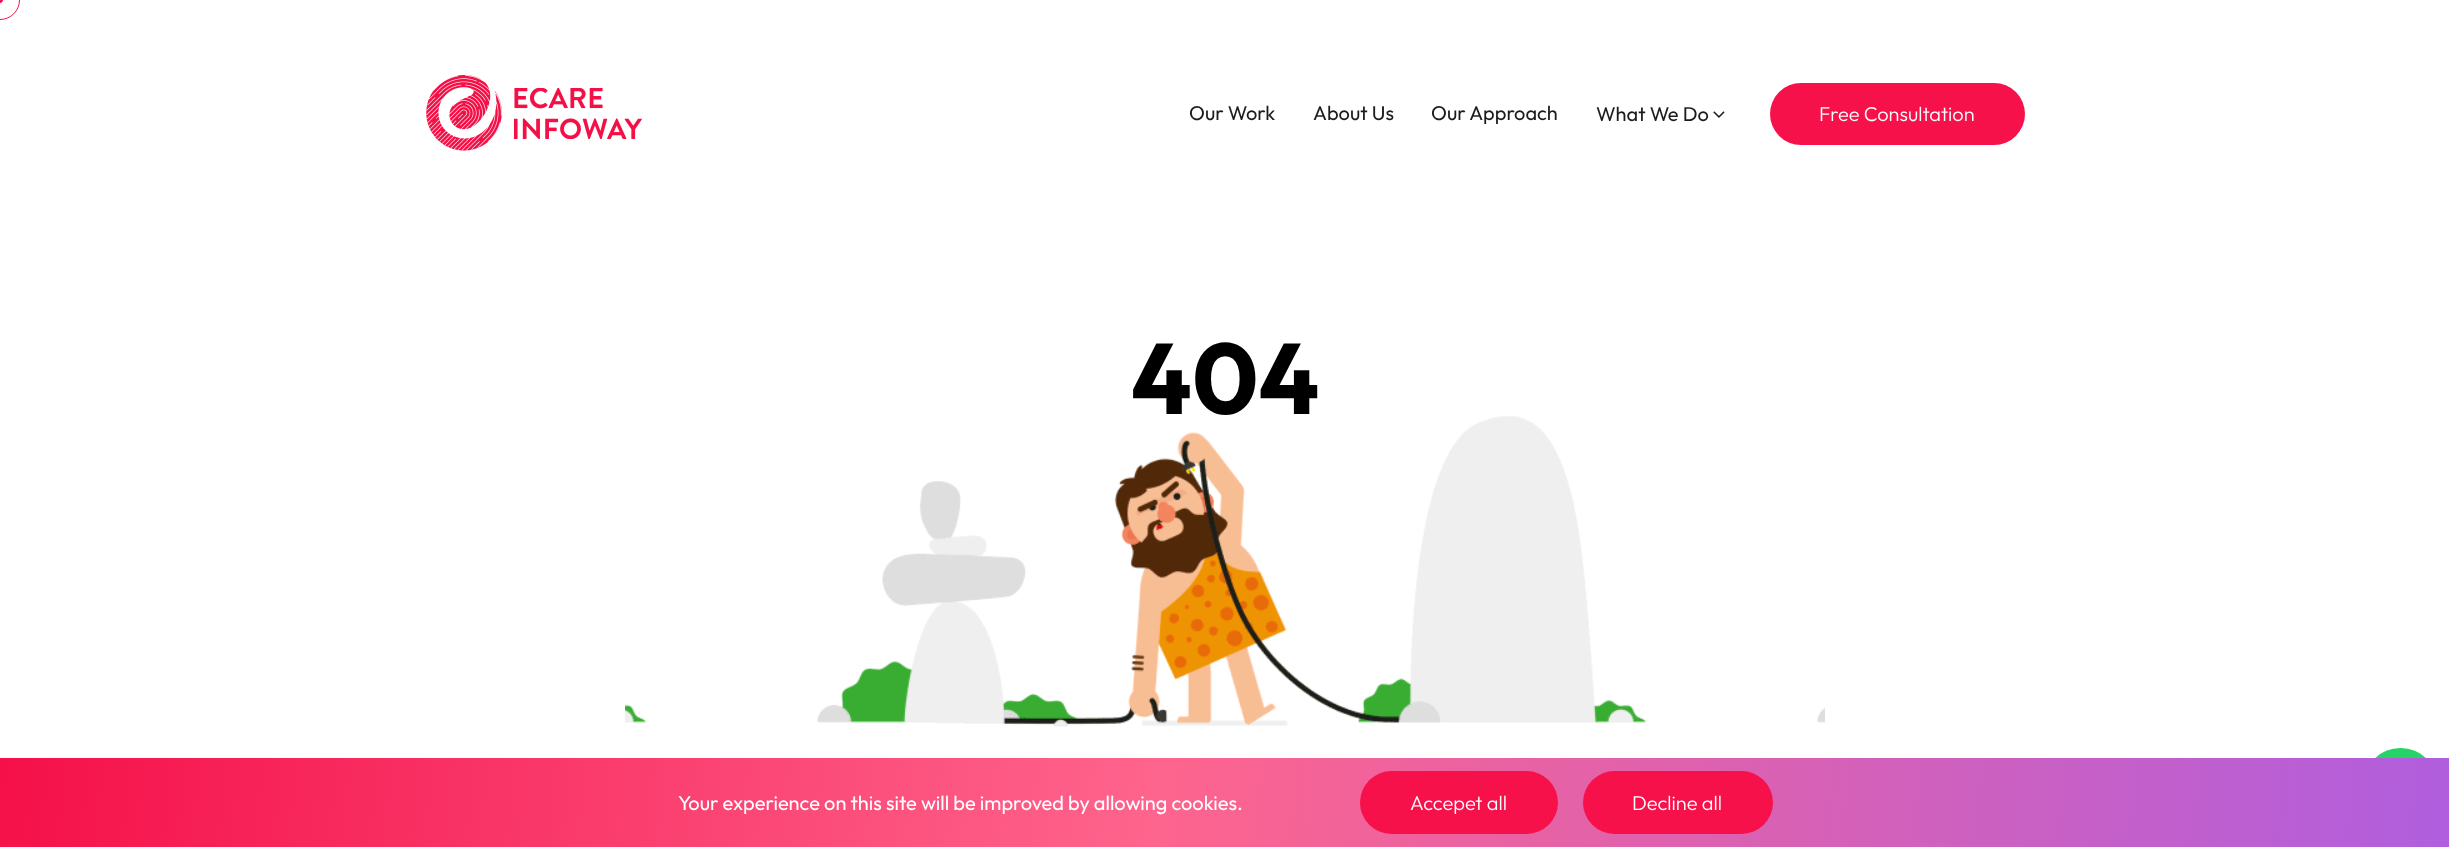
<!DOCTYPE html>
<meta charset="utf-8">
<style>body { margin: 0 } canvas { display: block }</style>
<canvas id="canvas" width="2449" height="847"></canvas>
<img id="img1" src="img_01.png" hidden>
<img id="img2" src="img_02.png" hidden>
<img id="img3" src="img_03.png" hidden>
<img id="img4" src="img_04.png" hidden>
<script>
window.onload = function () {
	const canvas = document.getElementById("canvas");
	const ctx = canvas.getContext("2d");
	ctx.miterLimit = 4;
	ctx.fontKerning = "normal";
	function txt(s, x, y) {
		ctx.fillText(s, x, y);
	}
	function fill(x, y, w, h) {
		ctx.fillRect(x, y, w, h);
	}
	function round(x, y, w, h, r) {
		ctx.beginPath();
		ctx.roundRect(x, y, w, h, r);
		ctx.fill();
	}
	function img(id, x, y, w, h) {
		ctx.drawImage(document.getElementById(id), x, y, w, h);
	}
	let gradient;

	ctx.fillStyle = "#FFFFFF";
	fill(0, 0, 2449, 847);
	ctx.fillStyle = "#F6114A";
	ctx.beginPath();
	ctx.arc(-0.5, -0.5, 3.5, 0, Math.PI * 2);
	ctx.fill();
	ctx.beginPath();
	ctx.arc(0, 0, 19.5, 0, Math.PI * 2);
	ctx.strokeStyle = "#F6114A";
	ctx.stroke();
	img("img1", 426, 75, 76, 76);
	img("img2", 514, 88, 128, 51);
	img("img3", 1713, 111, 12, 7);
	round(1770, 83, 255, 62, 31);
	img("img4", 625, 416, 1200, 311);
	ctx.fillStyle = "#25D366";
	ctx.beginPath();
	ctx.arc(2400.5, 785.5, 37.5, 0, Math.PI * 2);
	ctx.fill();
	gradient = ctx.createLinearGradient(9, 675, 2441, 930);
	gradient.addColorStop(0, "#F51049");
	gradient.addColorStop(0.47, "#FE648D");
	gradient.addColorStop(1, "#B05EDE");
	ctx.fillStyle = gradient;
	fill(0, 758, 2449, 89);
	ctx.fillStyle = "#F6114A";
	round(1360, 771, 198, 63, 31.5);
	round(1583, 771, 190, 63, 31.5);
	ctx.font = "20px Outfit";
	ctx.fillStyle = "#1C1C1C";
	txt("Our Work", 1189, 120);
	txt("About Us", 1313, 120);
	txt("Our Approach", 1431, 120);
	txt("What We Do", 1596, 121);
	ctx.font = "300 20px Outfit";
	ctx.fillStyle = "#FFFFFF";
	txt("Free Consultation", 1819, 121);
	ctx.font = "bold 100px Outfit";
	ctx.fillStyle = "#000000";
	txt("404", 1131, 414);
	ctx.font = "20px Outfit";
	ctx.fillStyle = "#FFFFFF";
	txt("Your experience on this site will be improved by allowing cookies.", 678, 810);
	ctx.font = "300 20px Outfit";
	txt("Accepet all", 1410, 810);
	txt("Decline all", 1632, 810);
};
</script>
